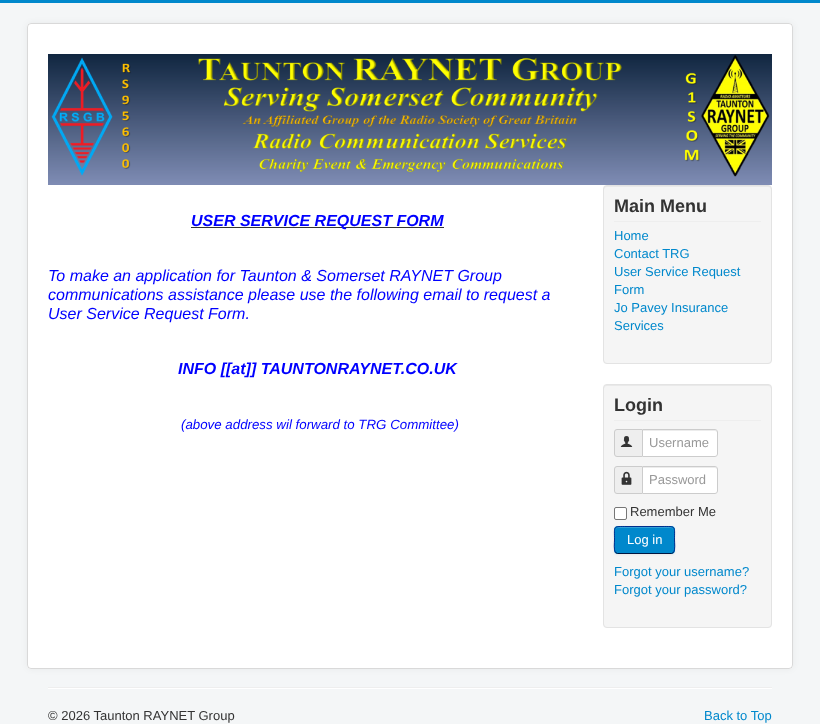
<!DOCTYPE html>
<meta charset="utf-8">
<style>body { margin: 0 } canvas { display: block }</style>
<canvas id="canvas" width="820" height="724"></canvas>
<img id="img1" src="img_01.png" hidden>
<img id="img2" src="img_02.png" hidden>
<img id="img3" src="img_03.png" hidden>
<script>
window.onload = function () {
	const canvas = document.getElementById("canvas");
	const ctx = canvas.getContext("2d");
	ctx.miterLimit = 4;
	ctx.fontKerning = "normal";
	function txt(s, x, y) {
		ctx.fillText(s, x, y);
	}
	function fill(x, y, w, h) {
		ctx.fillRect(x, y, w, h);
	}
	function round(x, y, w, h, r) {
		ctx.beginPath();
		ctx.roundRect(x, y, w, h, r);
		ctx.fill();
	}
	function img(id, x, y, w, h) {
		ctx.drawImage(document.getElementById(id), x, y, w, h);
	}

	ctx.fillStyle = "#F4F6F7";
	fill(0, 0, 820, 724);
	ctx.fillStyle = "#0088CC";
	fill(0, 0, 820, 3);
	ctx.fillStyle = "rgba(0, 0, 0, 0.05)";
	ctx.filter = "blur(3px)";
	ctx.beginPath();
	ctx.roundRect(27, 23, 766, 646, 4);
	ctx.fill();
	ctx.filter = "none";
	ctx.fillStyle = "#FFFFFF";
	round(27, 23, 766, 646, 4);
	ctx.beginPath();
	ctx.roundRect(27.5, 23.5, 765, 645, 3.5);
	ctx.strokeStyle = "rgba(0, 0, 0, 0.15)";
	ctx.stroke();
	img("img1", 48, 54, 724, 131);
	ctx.fillStyle = "#333333";
	fill(191, 227, 253, 1);
	ctx.fillStyle = "#F5F5F5";
	round(603, 185, 169, 179, 4);
	ctx.fillStyle = "#E9E9E9";
	ctx.beginPath();
	ctx.moveTo(607, 187);
	ctx.lineTo(768, 187);
	ctx.bezierCurveTo(770, 187, 771, 188, 771, 190);
	ctx.lineTo(771, 189);
	ctx.bezierCurveTo(771, 187, 770, 186, 768, 186);
	ctx.lineTo(607, 186);
	ctx.bezierCurveTo(605, 186, 604, 187, 604, 189);
	ctx.lineTo(604, 190);
	ctx.bezierCurveTo(604, 188, 605, 187, 607, 187);
	ctx.closePath();
	ctx.fill();
	ctx.beginPath();
	ctx.roundRect(603.5, 185.5, 168, 178, 3.5);
	ctx.strokeStyle = "#E3E3E3";
	ctx.stroke();
	ctx.fillStyle = "#EEEEEE";
	fill(614, 221, 147, 1);
	ctx.fillStyle = "#F5F5F5";
	round(603, 384, 169, 244, 4);
	ctx.fillStyle = "#E9E9E9";
	ctx.beginPath();
	ctx.moveTo(607, 386);
	ctx.lineTo(768, 386);
	ctx.bezierCurveTo(770, 386, 771, 387, 771, 389);
	ctx.lineTo(771, 388);
	ctx.bezierCurveTo(771, 386, 770, 385, 768, 385);
	ctx.lineTo(607, 385);
	ctx.bezierCurveTo(605, 385, 604, 386, 604, 388);
	ctx.lineTo(604, 389);
	ctx.bezierCurveTo(604, 387, 605, 386, 607, 386);
	ctx.closePath();
	ctx.fill();
	ctx.beginPath();
	ctx.roundRect(603.5, 384.5, 168, 243, 3.5);
	ctx.stroke();
	ctx.fillStyle = "#EEEEEE";
	fill(614, 420, 147, 1);
	ctx.beginPath();
	ctx.roundRect(614.5, 429.5, 28, 27, [2.5, 0, 0, 2.5]);
	ctx.fill();
	ctx.strokeStyle = "#CCCCCC";
	ctx.stroke();
	img("img2", 620, 436, 13, 11);
	ctx.fillStyle = "#FFFFFF";
	ctx.beginPath();
	ctx.roundRect(642, 429, 76, 28, [0, 3, 3, 0]);
	ctx.fill();
	ctx.fillStyle = "#ECECEC";
	ctx.beginPath();
	ctx.moveTo(643, 431);
	ctx.lineTo(715, 431);
	ctx.bezierCurveTo(716, 431, 717, 432, 717, 433);
	ctx.lineTo(717, 432);
	ctx.bezierCurveTo(717, 431, 716, 430, 715, 430);
	ctx.lineTo(643, 430);
	ctx.closePath();
	ctx.fill();
	ctx.beginPath();
	ctx.roundRect(642.5, 429.5, 75, 27, [0, 2.5, 2.5, 0]);
	ctx.stroke();
	ctx.fillStyle = "#EEEEEE";
	ctx.beginPath();
	ctx.roundRect(614.5, 466.5, 28, 27, [2.5, 0, 0, 2.5]);
	ctx.fill();
	ctx.stroke();
	img("img3", 621, 471, 11, 14);
	ctx.fillStyle = "#FFFFFF";
	ctx.beginPath();
	ctx.roundRect(642, 466, 76, 28, [0, 3, 3, 0]);
	ctx.fill();
	ctx.fillStyle = "#ECECEC";
	ctx.beginPath();
	ctx.moveTo(643, 468);
	ctx.lineTo(715, 468);
	ctx.bezierCurveTo(716, 468, 717, 469, 717, 470);
	ctx.lineTo(717, 469);
	ctx.bezierCurveTo(717, 468, 716, 467, 715, 467);
	ctx.lineTo(643, 467);
	ctx.closePath();
	ctx.fill();
	ctx.beginPath();
	ctx.roundRect(642.5, 466.5, 75, 27, [0, 2.5, 2.5, 0]);
	ctx.stroke();
	ctx.fillStyle = "#FFFFFF";
	ctx.beginPath();
	ctx.roundRect(614.5, 507.5, 12, 12, 1.5);
	ctx.fill();
	ctx.strokeStyle = "#767676";
	ctx.stroke();
	ctx.fillStyle = "rgba(0, 0, 0, 0.05)";
	ctx.filter = "blur(1px)";
	ctx.beginPath();
	ctx.roundRect(614, 527, 61, 28, 4);
	ctx.fill();
	ctx.filter = "none";
	ctx.fillStyle = "#0088CC";
	round(614, 526, 61, 28, 4);
	ctx.fillStyle = "#33A0D6";
	ctx.beginPath();
	ctx.moveTo(618, 528);
	ctx.lineTo(671, 528);
	ctx.bezierCurveTo(673, 528, 674, 529, 674, 531);
	ctx.bezierCurveTo(674, 525, 667, 527, 662, 527);
	ctx.lineTo(627, 527);
	ctx.bezierCurveTo(622, 527, 615, 525, 615, 531);
	ctx.bezierCurveTo(615, 529, 616, 528, 618, 528);
	ctx.closePath();
	ctx.fill();
	ctx.beginPath();
	ctx.moveTo(673.5, 552.5);
	ctx.lineTo(671.5, 553.5);
	ctx.lineTo(617.5, 553.5);
	ctx.lineTo(615.5, 552.5);
	ctx.strokeStyle = "#001641";
	ctx.stroke();
	ctx.beginPath();
	ctx.moveTo(615.5, 552.5);
	ctx.bezierCurveTo(613.5, 550, 614.5, 542.5, 614.5, 540);
	ctx.bezierCurveTo(614.5, 525.5, 612.5, 526.5, 627, 526.5);
	ctx.lineTo(662, 526.5);
	ctx.bezierCurveTo(676.5, 526.5, 674.5, 525.5, 674.5, 540);
	ctx.bezierCurveTo(674.5, 542.5, 675.5, 550, 673.5, 552.5);
	ctx.strokeStyle = "#002F8D";
	ctx.stroke();
	ctx.fillStyle = "#EEEEEE";
	fill(48, 687, 724, 1);
	ctx.fillStyle = "#FFFFFF";
	fill(48, 688, 724, 1);
	ctx.font = "italic bold 16px Liberation Sans";
	ctx.fillStyle = "#0000FF";
	txt("USER SERVICE REQUEST FORM", 191, 226);
	ctx.font = "italic 16px Liberation Sans";
	txt("To make an application for Taunton & Somerset RAYNET Group", 48, 281);
	txt("communications assistance please use the following email to request a", 48, 300);
	txt("User Service Request Form.", 48, 319);
	ctx.font = "italic bold 16px Liberation Sans";
	txt("INFO [[at]] TAUNTONRAYNET.CO.UK", 178, 374);
	ctx.font = "italic 13.3px Liberation Sans";
	txt("(above address wil forward to TRG Committee)", 181, 429);
	ctx.font = "bold 18px Liberation Sans";
	ctx.fillStyle = "#333333";
	txt("Main Menu", 614, 212);
	ctx.font = "13px Liberation Sans";
	ctx.fillStyle = "#0088CC";
	txt("Home", 614, 240);
	txt("Contact TRG", 614, 258);
	txt("User Service Request", 614, 276);
	txt("Form", 614, 294);
	txt("Jo Pavey Insurance", 614, 312);
	txt("Services", 614, 330);
	ctx.font = "bold 18px Liberation Sans";
	ctx.fillStyle = "#333333";
	txt("Login", 614, 411);
	ctx.font = "13px Liberation Sans";
	ctx.fillStyle = "#999999";
	txt("Username", 649, 447);
	txt("Password", 649, 484);
	ctx.fillStyle = "#333333";
	txt("Remember Me", 630, 516);
	ctx.fillStyle = "#FFFFFF";
	txt("Log in", 627, 544);
	ctx.fillStyle = "#0088CC";
	txt("Forgot your username?", 614, 576);
	txt("Forgot your password?", 614, 594);
	ctx.fillStyle = "#333333";
	txt("© 2026 Taunton RAYNET Group", 48, 720);
	ctx.fillStyle = "#0088CC";
	txt("Back to Top", 704, 720);
};
</script>
